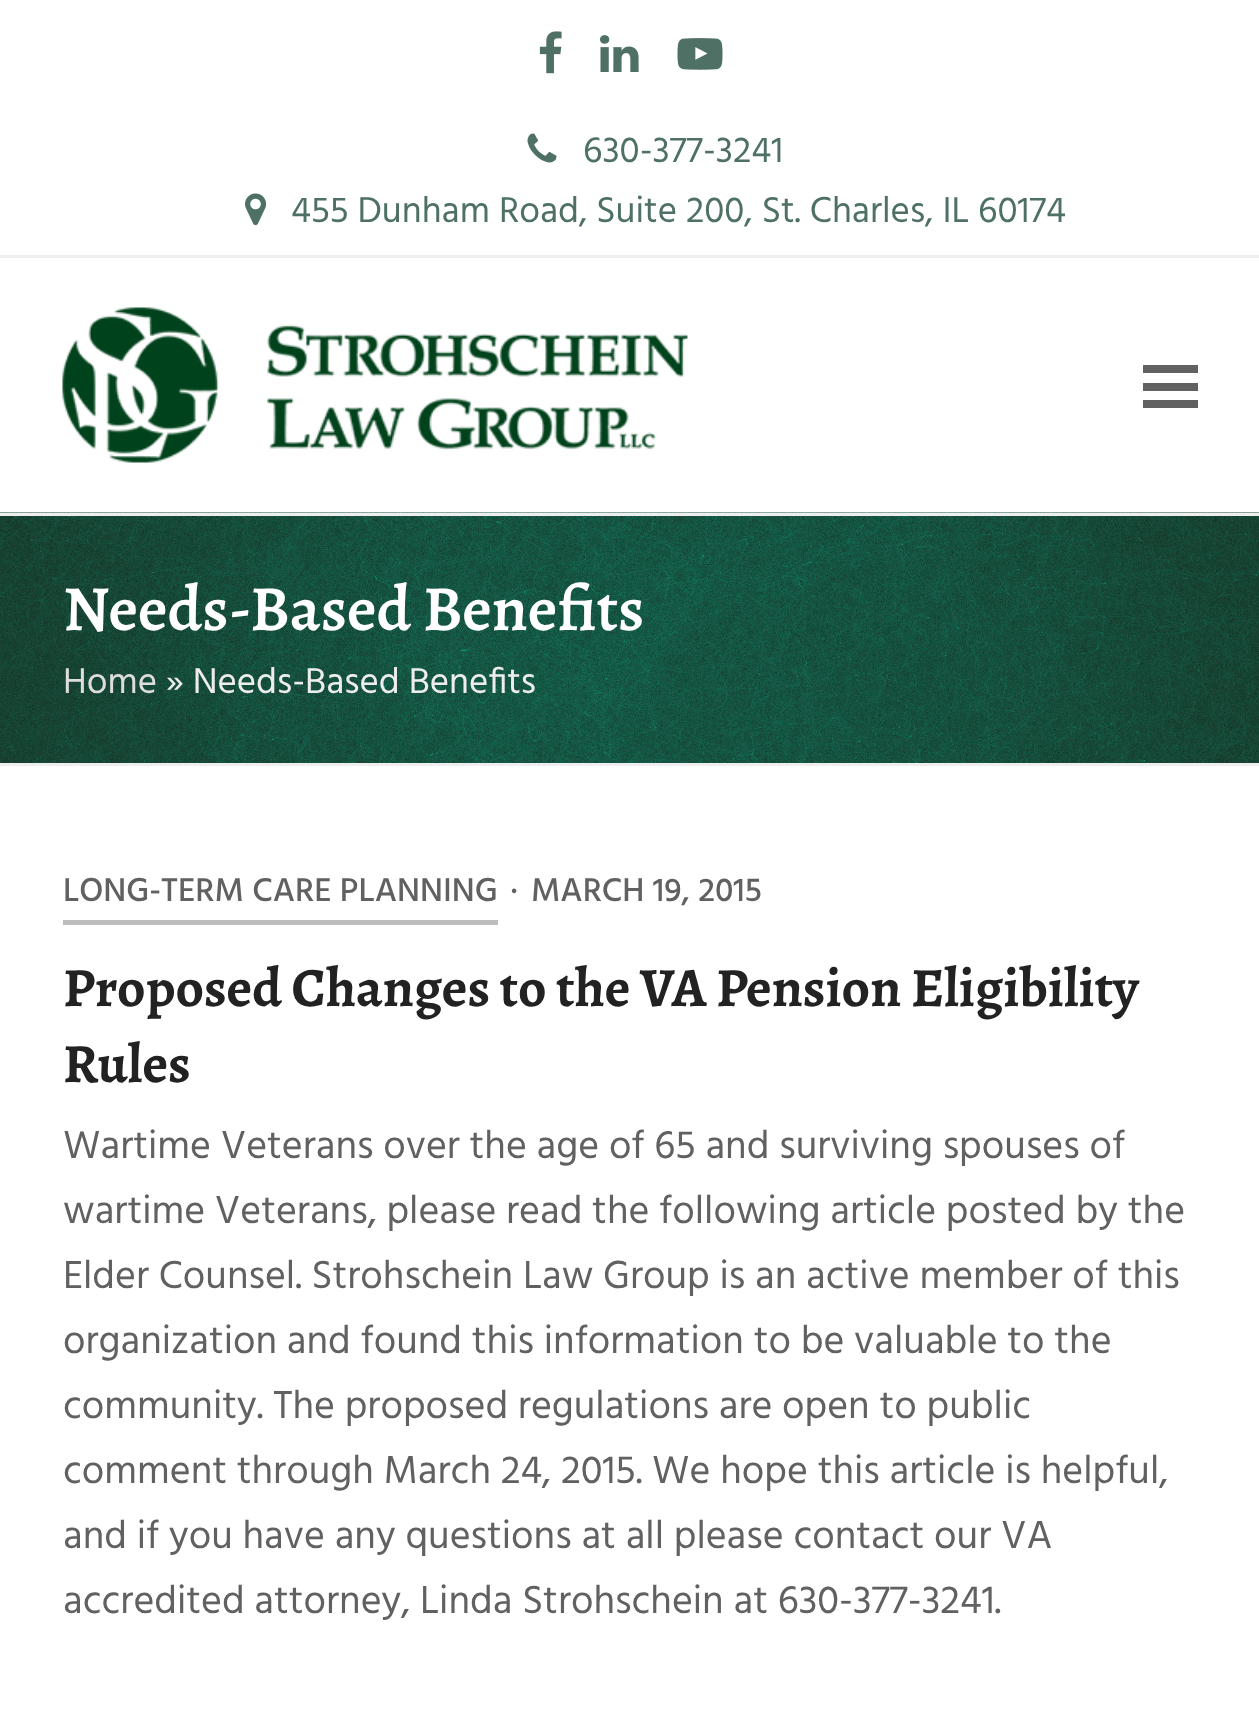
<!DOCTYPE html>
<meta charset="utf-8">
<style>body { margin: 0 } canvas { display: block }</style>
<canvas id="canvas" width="1259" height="1718"></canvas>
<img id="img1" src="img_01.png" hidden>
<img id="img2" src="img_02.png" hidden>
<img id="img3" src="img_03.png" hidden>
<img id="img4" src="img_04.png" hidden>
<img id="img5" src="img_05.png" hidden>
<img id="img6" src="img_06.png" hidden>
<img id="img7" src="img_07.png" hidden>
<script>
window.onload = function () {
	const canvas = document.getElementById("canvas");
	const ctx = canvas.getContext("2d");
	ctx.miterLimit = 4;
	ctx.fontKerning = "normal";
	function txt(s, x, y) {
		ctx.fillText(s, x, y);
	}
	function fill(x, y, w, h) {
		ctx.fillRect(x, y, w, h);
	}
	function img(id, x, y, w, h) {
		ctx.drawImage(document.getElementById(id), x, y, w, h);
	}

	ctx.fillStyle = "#FFFFFF";
	fill(0, 0, 1259, 1718);
	ctx.fillStyle = "#EEEEEE";
	fill(0, 255, 1259, 3);
	img("img1", 539, 31, 23, 43);
	img("img2", 600, 35, 39, 37);
	img("img3", 677, 38, 46, 32);
	img("img4", 527, 133, 30, 30);
	img("img5", 245, 193, 22, 33);
	img("img6", 62, 307, 626, 156);
	ctx.fillStyle = "#616161";
	fill(1143, 383, 55, 8);
	fill(1143, 365, 55, 8);
	fill(1143, 400, 55, 8);
	img("img7", 0, 512, 1259, 251);
	ctx.fillStyle = "#EEEEEE";
	fill(0, 513, 1259, 3);
	fill(0, 763, 1259, 3);
	ctx.fillStyle = "#BDBDBD";
	fill(63, 920, 435, 5);
	ctx.font = "36.9px Hind";
	ctx.fillStyle = "#4E7065";
	txt("630-377-3241", 583, 162);
	txt("455 Dunham Road, Suite 200, St. Charles, IL 60174", 291, 222);
	ctx.font = "600 64.5px Alegreya";
	ctx.fillStyle = "#FFFFFF";
	txt("Needs-Based Benefits", 63, 630);
	ctx.font = "36.9px Hind";
	ctx.fillStyle = "#DDDDDD";
	txt("Home", 63, 693);
	ctx.fillStyle = "#EDEDED";
	txt("» Needs-Based Benefits", 166, 693);
	ctx.font = "500 33.8px Hind";
	ctx.fillStyle = "#616161";
	txt("LONG-TERM CARE PLANNING", 63, 901);
	txt("·", 510, 901);
	txt("MARCH 19, 2015", 531, 901);
	ctx.font = "bold 55.4px Alegreya";
	ctx.fillStyle = "#222222";
	txt("Proposed Changes to the VA Pension Eligibility", 63, 1006);
	txt("Rules", 63, 1082);
	ctx.font = "40px Hind";
	ctx.fillStyle = "#616161";
	txt("Wartime Veterans over the age of 65 and surviving spouses of", 63, 1158);
	txt("wartime Veterans, please read the following article posted by the", 63, 1223);
	txt("Elder Counsel. Strohschein Law Group is an active member of this", 63, 1288);
	txt("organization and found this information to be valuable to the", 63, 1353);
	txt("community. The proposed regulations are open to public", 63, 1418);
	txt("comment through March 24, 2015. We hope this article is helpful,", 63, 1483);
	txt("and if you have any questions at all please contact our VA", 63, 1548);
	txt("accredited attorney, Linda Strohschein at 630-377-3241.", 63, 1613);
};
</script>
